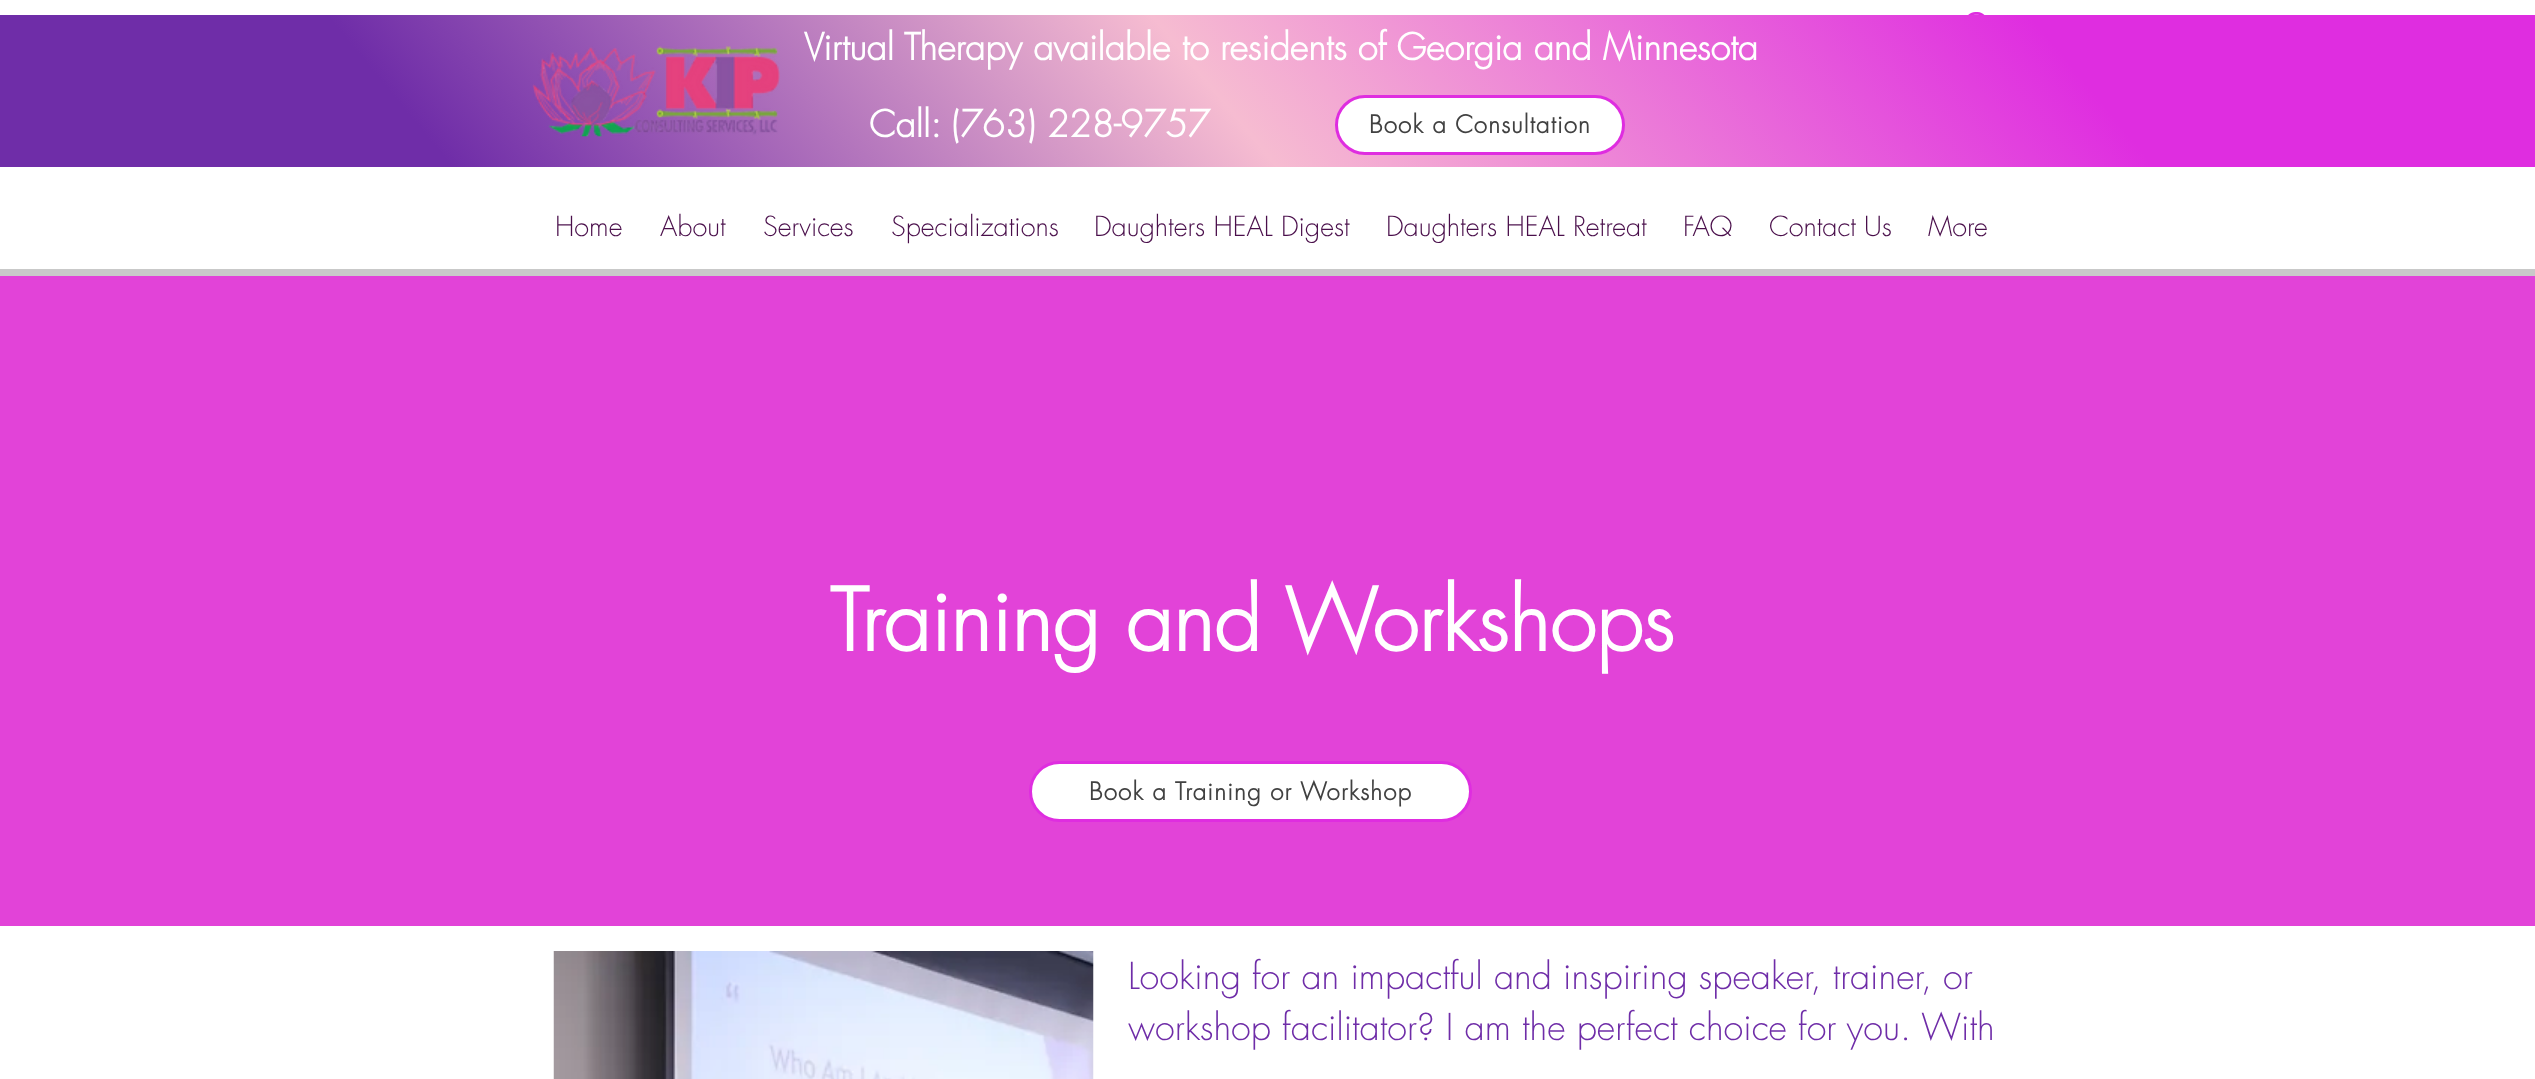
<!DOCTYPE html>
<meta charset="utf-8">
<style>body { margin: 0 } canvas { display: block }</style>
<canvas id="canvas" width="2535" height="1079"></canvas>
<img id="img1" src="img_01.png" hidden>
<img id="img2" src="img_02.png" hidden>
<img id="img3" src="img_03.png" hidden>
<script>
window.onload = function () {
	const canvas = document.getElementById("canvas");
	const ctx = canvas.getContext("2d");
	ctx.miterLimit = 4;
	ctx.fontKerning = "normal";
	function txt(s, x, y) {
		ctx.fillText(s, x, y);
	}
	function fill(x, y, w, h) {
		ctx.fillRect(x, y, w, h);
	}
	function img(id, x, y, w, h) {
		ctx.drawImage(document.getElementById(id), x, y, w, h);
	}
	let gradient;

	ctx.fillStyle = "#E243D8";
	fill(0, 0, 2535, 1079);
	ctx.fillStyle = "#FFFFFF";
	fill(0, 0, 2535, 269);
	ctx.fillStyle = "#C9C9C9";
	fill(0, 269, 2535, 7);
	img("img1", 1968, 12, 17, 3);
	gradient = ctx.createLinearGradient(476, 744, 2059, -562);
	gradient.addColorStop(0.17, "#6F2DA8");
	gradient.addColorStop(0.48, "#F6BCD1");
	gradient.addColorStop(0.81, "#DF2DE0");
	ctx.fillStyle = gradient;
	fill(0, 15, 2535, 152);
	img("img2", 532, 46, 248, 91);
	ctx.fillStyle = "#FFFFFF";
	ctx.beginPath();
	ctx.roundRect(1336.5, 96.5, 287, 57, 28.5);
	ctx.fill();
	ctx.strokeStyle = "#DF2DE0";
	ctx.lineWidth = 3;
	ctx.stroke();
	ctx.beginPath();
	ctx.roundRect(1030.5, 762.5, 440, 58, 29);
	ctx.fill();
	ctx.stroke();
	fill(0, 926, 2535, 153);
	img("img3", 553, 951, 541, 128);
	ctx.font = "bold 36px futura";
	txt("Virtual Therapy available to residents of Georgia and Minnesota", 804, 60);
	txt("Call: (763) 228-9757", 869, 137);
	ctx.letterSpacing = "1.2px";
	ctx.font = "bold 24px futura";
	ctx.fillStyle = "#414141";
	txt("Book a Consultation", 1369, 133);
	ctx.letterSpacing = "0px";
	ctx.font = "300 27px futura";
	ctx.fillStyle = "#4A0F4B";
	txt("Home", 555, 236);
	txt("About", 660, 236);
	txt("Services", 763, 236);
	txt("Specializations", 891, 236);
	txt("Daughters HEAL Digest", 1094, 236);
	txt("Daughters HEAL Retreat", 1386, 236);
	txt("FAQ", 1683, 236);
	txt("Contact Us", 1769, 236);
	txt("More", 1928, 236);
	ctx.font = "bold 84px futura";
	ctx.fillStyle = "#FFFFFF";
	txt("Training and Workshops", 830, 651);
	ctx.letterSpacing = "1.2px";
	ctx.font = "bold 24px futura";
	ctx.fillStyle = "#414141";
	txt("Book a Training or Workshop", 1089, 800);
	ctx.letterSpacing = "0px";
	ctx.font = "300 36px futura";
	ctx.fillStyle = "#6F2DA8";
	txt("Looking for an impactful and inspiring speaker, trainer, or", 1128, 989);
	txt("workshop facilitator? I am the perfect choice for you. With", 1128, 1040);
};
</script>
